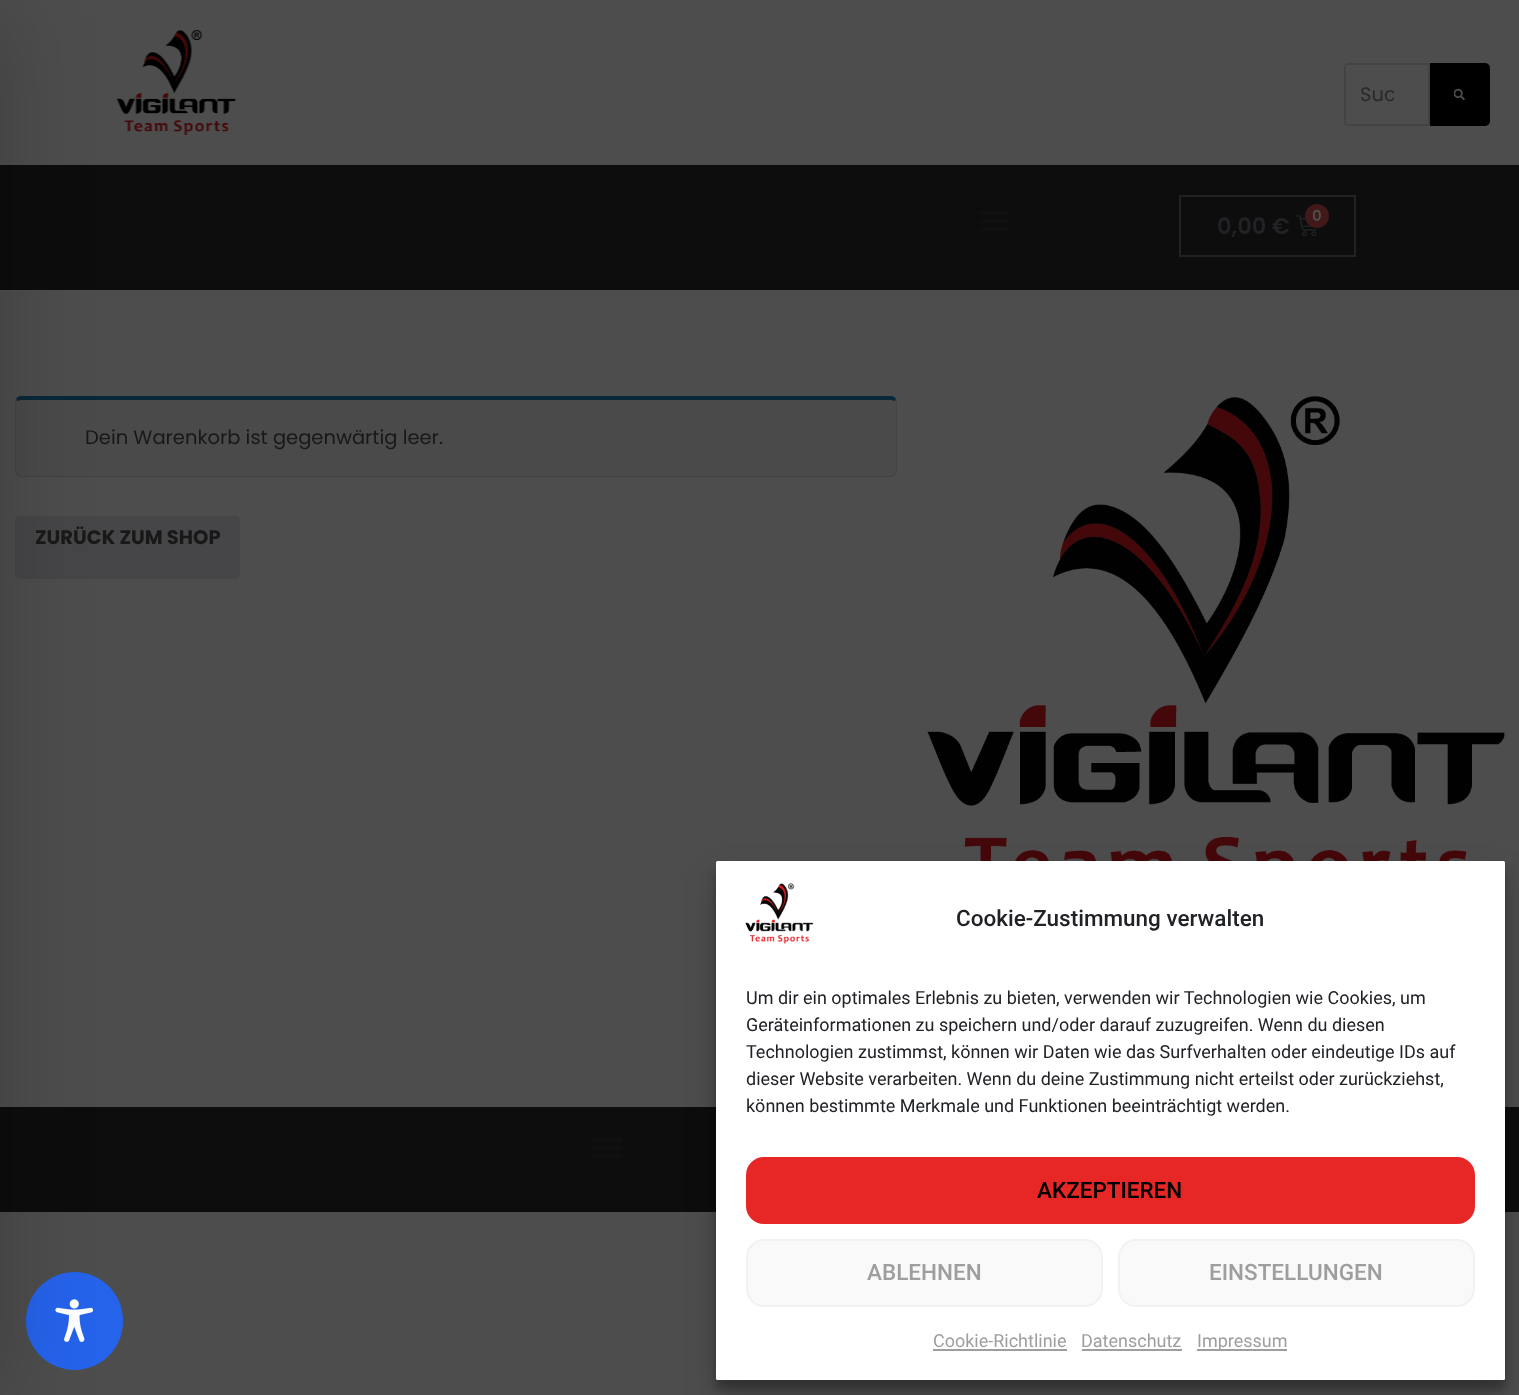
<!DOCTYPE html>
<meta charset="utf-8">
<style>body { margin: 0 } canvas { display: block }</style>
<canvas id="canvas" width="1519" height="1395"></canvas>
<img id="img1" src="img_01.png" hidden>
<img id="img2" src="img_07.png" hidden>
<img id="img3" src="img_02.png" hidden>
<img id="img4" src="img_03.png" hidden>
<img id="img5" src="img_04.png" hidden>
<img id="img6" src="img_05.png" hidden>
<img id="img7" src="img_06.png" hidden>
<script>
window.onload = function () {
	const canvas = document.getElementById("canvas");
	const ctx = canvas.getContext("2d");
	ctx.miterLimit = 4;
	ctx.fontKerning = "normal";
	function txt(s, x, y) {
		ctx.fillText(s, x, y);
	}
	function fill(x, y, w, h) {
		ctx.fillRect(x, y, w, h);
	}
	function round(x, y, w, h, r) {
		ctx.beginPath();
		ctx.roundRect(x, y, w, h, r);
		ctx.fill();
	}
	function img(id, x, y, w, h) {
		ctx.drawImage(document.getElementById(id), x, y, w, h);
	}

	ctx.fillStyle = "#4D4D4D";
	fill(0, 0, 1519, 1395);
	img("img1", 116, 30, 120, 105);
	ctx.fillStyle = "#0D0D0D";
	fill(0, 165, 1519, 125);
	ctx.fillStyle = "#4A4A4A";
	ctx.beginPath();
	ctx.moveTo(21, 400);
	ctx.lineTo(891, 400);
	ctx.bezierCurveTo(893, 400, 896, 401, 896, 402);
	ctx.lineTo(896, 471);
	ctx.bezierCurveTo(896, 473, 893, 476, 891, 476);
	ctx.lineTo(21, 476);
	ctx.bezierCurveTo(19, 476, 16, 473, 16, 471);
	ctx.lineTo(16, 402);
	ctx.bezierCurveTo(16, 401, 19, 400, 21, 400);
	ctx.closePath();
	ctx.fill();
	ctx.fillStyle = "#092839";
	ctx.beginPath();
	ctx.moveTo(21, 396);
	ctx.bezierCurveTo(19, 396, 17, 397, 16, 399);
	ctx.lineTo(17, 401);
	ctx.lineTo(21, 400);
	ctx.lineTo(891, 400);
	ctx.lineTo(895, 401);
	ctx.lineTo(896, 399);
	ctx.bezierCurveTo(895, 397, 893, 396, 891, 396);
	ctx.closePath();
	ctx.fill();
	ctx.fillStyle = "#434343";
	ctx.beginPath();
	ctx.moveTo(897, 471);
	ctx.lineTo(897, 402);
	ctx.lineTo(896, 399);
	ctx.lineTo(895, 401);
	ctx.lineTo(896, 402);
	ctx.lineTo(896, 471);
	ctx.bezierCurveTo(896, 472, 895, 473, 894, 474);
	ctx.lineTo(895, 475);
	ctx.bezierCurveTo(896, 474, 897, 472, 897, 471);
	ctx.closePath();
	ctx.fill();
	ctx.beginPath();
	ctx.moveTo(21, 477);
	ctx.lineTo(891, 477);
	ctx.bezierCurveTo(892, 477, 894, 476, 895, 475);
	ctx.lineTo(894, 474);
	ctx.bezierCurveTo(893, 475, 892, 476, 891, 476);
	ctx.lineTo(21, 476);
	ctx.bezierCurveTo(20, 476, 19, 475, 18, 474);
	ctx.lineTo(17, 475);
	ctx.bezierCurveTo(18, 476, 20, 477, 21, 477);
	ctx.closePath();
	ctx.fill();
	ctx.beginPath();
	ctx.moveTo(15, 402);
	ctx.lineTo(15, 471);
	ctx.bezierCurveTo(15, 472, 16, 474, 17, 475);
	ctx.lineTo(18, 474);
	ctx.bezierCurveTo(17, 473, 16, 472, 16, 471);
	ctx.lineTo(16, 402);
	ctx.lineTo(17, 401);
	ctx.lineTo(16, 399);
	ctx.closePath();
	ctx.fill();
	ctx.fillStyle = "#464547";
	round(15, 516, 225, 63, 5);
	ctx.fillStyle = "#0D0D0D";
	fill(0, 1107, 1519, 105);
	ctx.fillStyle = "#2563EB";
	round(26, 1272, 97, 98, 48.5);
	img("img2", 55, 1299, 39, 43);
	ctx.fillStyle = "rgba(0, 0, 0, 0.2)";
	ctx.filter = "blur(45px)";
	ctx.beginPath();
	ctx.rect(-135, 15, 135, 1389);
	ctx.fill();
	ctx.filter = "none";
	ctx.fillStyle = "#484949";
	round(1344, 63, 146, 63, 5);
	ctx.fillStyle = "#4D4D4D";
	ctx.beginPath();
	ctx.roundRect(1344, 63, 86, 63, [5, 3, 3, 5]);
	ctx.fill();
	ctx.fillStyle = "#434343";
	ctx.beginPath();
	ctx.moveTo(1349, 63);
	ctx.bezierCurveTo(1346, 63, 1344, 65, 1344, 68);
	ctx.lineTo(1344, 121);
	ctx.bezierCurveTo(1344, 124, 1346, 126, 1349, 126);
	ctx.lineTo(1427, 126);
	ctx.bezierCurveTo(1429, 126, 1430, 125, 1430, 123);
	ctx.lineTo(1430, 66);
	ctx.bezierCurveTo(1430, 64, 1429, 63, 1427, 63);
	ctx.closePath();
	ctx.moveTo(1347, 65);
	ctx.lineTo(1346, 66);
	ctx.lineTo(1346, 114);
	ctx.bezierCurveTo(1346, 128, 1344, 124, 1360, 124);
	ctx.lineTo(1427, 124);
	ctx.lineTo(1428, 123);
	ctx.lineTo(1428, 66);
	ctx.lineTo(1427, 65);
	ctx.closePath();
	ctx.fill("evenodd");
	ctx.fillStyle = "#000000";
	ctx.beginPath();
	ctx.roundRect(1430, 63, 60, 63, [0, 5, 5, 0]);
	ctx.fill();
	img("img3", 1454, 88, 11, 13);
	img("img4", 979, 211, 31, 21);
	ctx.strokeStyle = "#202226";
	ctx.lineWidth = 2;
	ctx.strokeRect(1180, 196, 175, 60);
	img("img5", 1296, 215, 21, 22);
	ctx.fillStyle = "#411918";
	ctx.beginPath();
	ctx.arc(1317, 216, 12, 0, Math.PI * 2);
	ctx.fill();
	img("img6", 927, 396, 578, 465);
	ctx.fillStyle = "rgba(0, 0, 0, 0.23)";
	ctx.filter = "blur(4.5px)";
	ctx.beginPath();
	ctx.roundRect(716, 870, 789, 519, 1.5);
	ctx.fill();
	ctx.filter = "none";
	ctx.fillStyle = "rgba(0, 0, 0, 0.19)";
	ctx.filter = "blur(15px)";
	ctx.beginPath();
	ctx.roundRect(716, 876, 789, 519, 1.5);
	ctx.fill();
	ctx.filter = "none";
	ctx.fillStyle = "#FFFFFF";
	round(716, 861, 789, 519, 1.5);
	img("img7", 745, 883, 69, 61);
	ctx.fillStyle = "#E72626";
	ctx.beginPath();
	ctx.roundRect(747, 1158, 727, 65, 17);
	ctx.fill();
	ctx.strokeStyle = "#E72626";
	ctx.stroke();
	ctx.fillStyle = "#F9F9F9";
	ctx.beginPath();
	ctx.roundRect(747, 1240, 355, 66, 17);
	ctx.fill();
	ctx.strokeStyle = "#F2F2F2";
	ctx.stroke();
	ctx.beginPath();
	ctx.roundRect(1119, 1240, 355, 66, 17);
	ctx.fill();
	ctx.stroke();
	ctx.fillStyle = "#9E9E9E";
	fill(933, 1349, 134, 2);
	fill(1082, 1349, 100, 2);
	fill(1197, 1349, 90, 2);
	img("img4", 592, 1138, 31, 21);
	ctx.save();
	ctx.beginPath();
	ctx.rect(1361, 80, 33, 30);
	ctx.clip();
	ctx.font = "19.5px Poppins";
	ctx.fillStyle = "#29292A";
	txt("Suc", 1360, 101);
	ctx.restore();
	ctx.font = "600 15px Poppins";
	ctx.fillStyle = "#4D4D4D";
	txt("0", 1312, 221);
	ctx.font = "600 22.5px Poppins";
	ctx.fillStyle = "#202226";
	txt("0,00 €", 1217, 234);
	ctx.font = "19.5px Poppins";
	ctx.fillStyle = "#181818";
	txt("Dein Warenkorb ist gegenwärtig leer.", 85, 444);
	ctx.font = "bold 19.5px Poppins";
	txt("ZURÜCK ZUM SHOP", 35, 544);
	ctx.font = "500 22.5px Roboto";
	ctx.fillStyle = "#202226";
	txt("Cookie-Zustimmung verwalten", 956, 926);
	ctx.font = "18px Roboto";
	txt("Um dir ein optimales Erlebnis zu bieten, verwenden wir Technologien wie Cookies, um", 746, 1004);
	txt("Geräteinformationen zu speichern und/oder darauf zuzugreifen. Wenn du diesen", 746, 1031);
	txt("Technologien zustimmst, können wir Daten wie das Surfverhalten oder eindeutige IDs auf", 746, 1058);
	txt("dieser Website verarbeiten. Wenn du deine Zustimmung nicht erteilst oder zurückziehst,", 746, 1085);
	txt("können bestimmte Merkmale und Funktionen beeinträchtigt werden.", 746, 1112);
	ctx.font = "500 22.5px Roboto";
	ctx.fillStyle = "#000000";
	txt("AKZEPTIEREN", 1037, 1198);
	ctx.fillStyle = "#9E9E9E";
	txt("ABLEHNEN", 867, 1280);
	txt("EINSTELLUNGEN", 1209, 1280);
	ctx.font = "18px Roboto";
	txt("Cookie-Richtlinie", 933, 1347);
	txt("Datenschutz", 1081, 1347);
	txt("Impressum", 1197, 1347);
};
</script>
